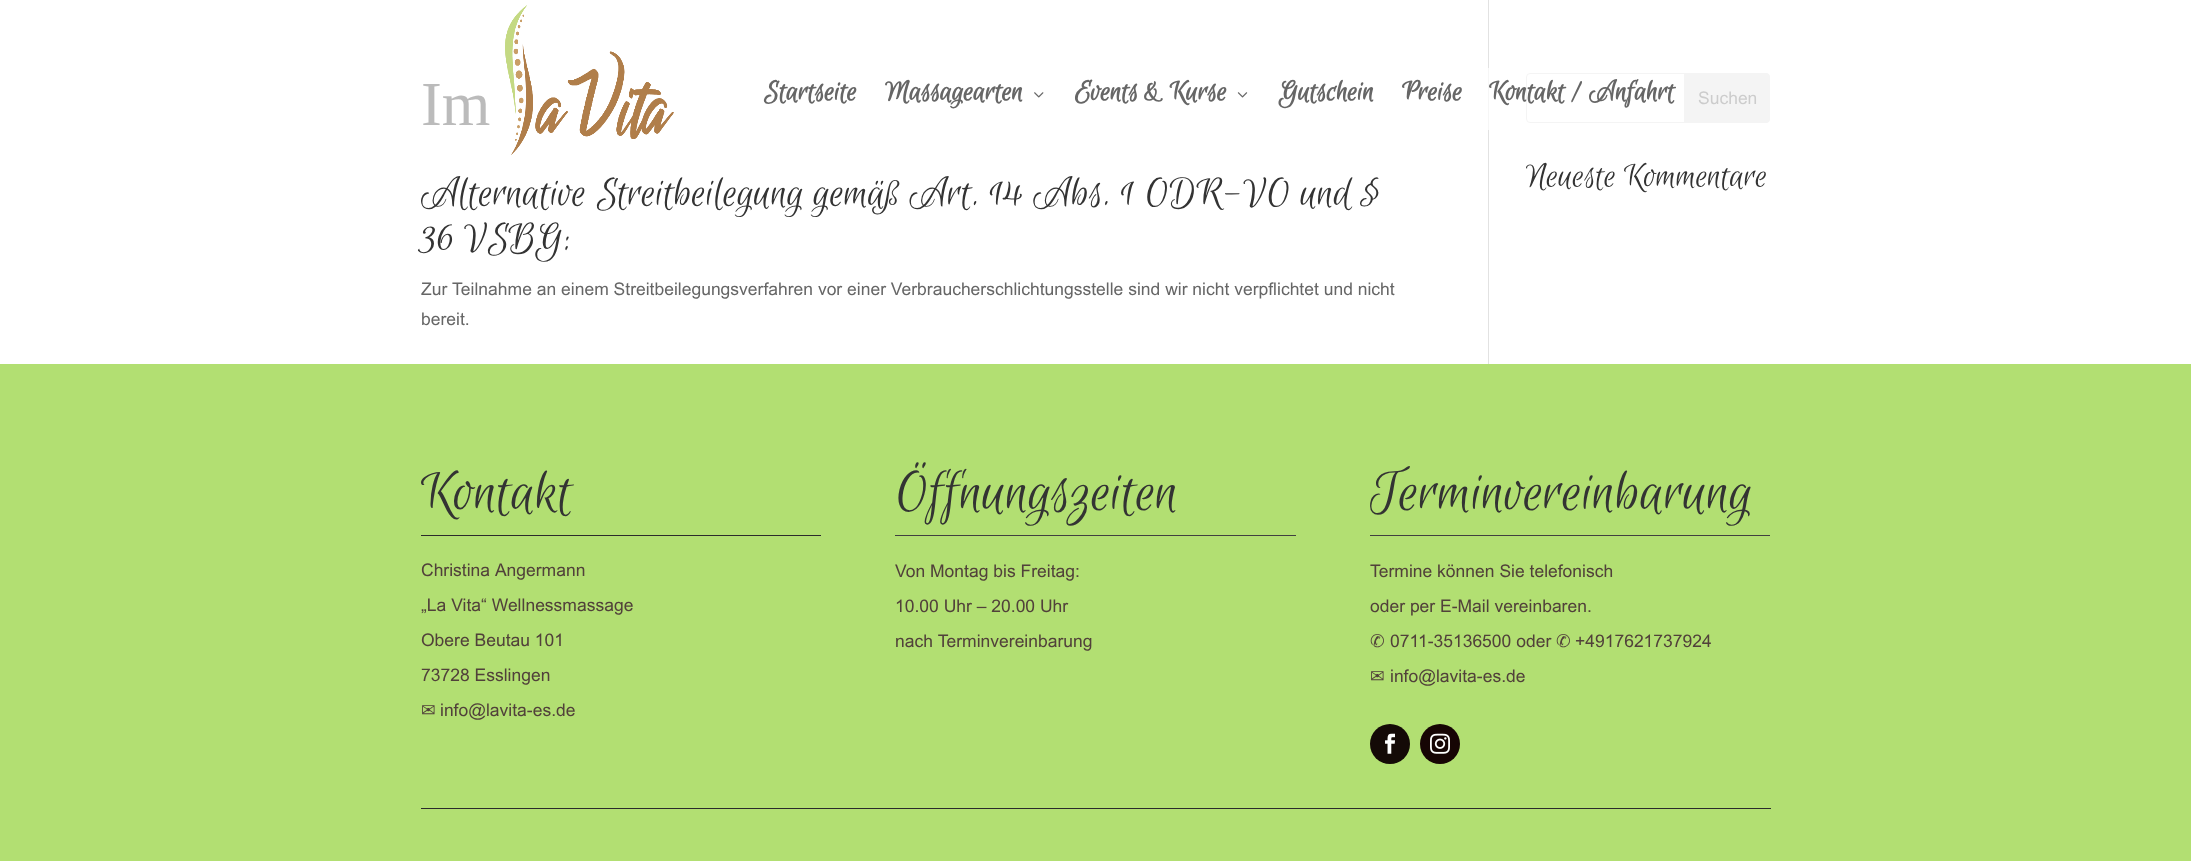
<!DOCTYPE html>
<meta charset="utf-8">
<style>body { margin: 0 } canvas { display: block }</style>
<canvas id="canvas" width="2191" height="861"></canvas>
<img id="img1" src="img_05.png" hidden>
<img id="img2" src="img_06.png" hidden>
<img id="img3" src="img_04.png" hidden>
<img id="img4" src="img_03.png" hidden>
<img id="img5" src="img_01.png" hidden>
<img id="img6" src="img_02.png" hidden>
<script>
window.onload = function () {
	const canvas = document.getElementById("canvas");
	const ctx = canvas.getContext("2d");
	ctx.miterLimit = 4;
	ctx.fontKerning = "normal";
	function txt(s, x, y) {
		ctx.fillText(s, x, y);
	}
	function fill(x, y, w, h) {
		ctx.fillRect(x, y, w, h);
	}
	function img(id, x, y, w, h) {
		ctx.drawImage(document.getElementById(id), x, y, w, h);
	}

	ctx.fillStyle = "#FFFFFF";
	fill(0, 0, 2191, 861);
	ctx.fillStyle = "#E2E2E2";
	fill(1488, 0, 1, 364);
	ctx.beginPath();
	ctx.roundRect(1526.5, 73.5, 243, 49, 3.5);
	ctx.strokeStyle = "#DDDDDD";
	ctx.stroke();
	ctx.fillStyle = "#DDDDDD";
	ctx.beginPath();
	ctx.roundRect(1684.5, 73.5, 85, 49, [0, 3.5, 3.5, 0]);
	ctx.fill();
	ctx.stroke();
	ctx.fillStyle = "#B2DF72";
	fill(0, 364, 2191, 497);
	ctx.fillStyle = "#2B2B2B";
	fill(421, 535, 400, 1);
	ctx.fillStyle = "#404040";
	fill(895, 535, 401, 1);
	fill(1370, 535, 400, 1);
	ctx.fillStyle = "#140A07";
	ctx.beginPath();
	ctx.arc(1390, 744, 20, 0, Math.PI * 2);
	ctx.fill();
	img("img1", 1385, 733, 10, 21);
	ctx.fillStyle = "#160504";
	ctx.beginPath();
	ctx.arc(1440, 744, 20, 0, Math.PI * 2);
	ctx.fill();
	img("img2", 1430, 733, 20, 21);
	ctx.fillStyle = "#2B2B2B";
	fill(421, 808, 1350, 1);
	ctx.font = "62.5px Liberation Serif";
	ctx.fillStyle = "#333333";
	txt("Im", 421, 125);
	ctx.font = "45px Euphoria Script";
	txt("Alternative Streitbeilegung gemäß Art. 14 Abs. 1 ODR-VO und §", 421, 205);
	txt("36 VSBG:", 421, 250);
	ctx.font = "17.5px Arial";
	ctx.fillStyle = "#666666";
	txt("Zur Teilnahme an einem Streitbeilegungsverfahren vor einer Verbraucherschlichtungsstelle sind wir nicht verpflichtet und nicht", 421, 295);
	txt("bereit.", 421, 325);
	txt("Suchen", 1698, 104);
	ctx.fillStyle = "rgba(255, 255, 255, 0.67)";
	fill(422, 68, 1348, 62);
	ctx.font = "bold 31.25px Euphoria Script";
	ctx.fillStyle = "#666666";
	txt("Kontakt / Anfahrt", 1489, 100);
	txt("Preise", 1402, 100);
	txt("Gutschein", 1279, 100);
	img("img3", 1237, 92, 11, 6);
	txt("Events & Kurse", 1075, 100);
	img("img4", 1034, 92, 10, 6);
	txt("Massagearten", 885, 100);
	txt("Startseite", 764, 100);
	img("img5", 505, 5, 169, 150);
	img("img6", 505, 5, 169, 150);
	ctx.font = "37.5px Euphoria Script";
	ctx.fillStyle = "#333333";
	txt("Neueste Kommentare", 1526, 186);
	ctx.font = "62.5px Euphoria Script";
	txt("Kontakt", 421, 509);
	ctx.font = "17.5px Arial";
	ctx.fillStyle = "#51413A";
	txt("Christina Angermann", 421, 576);
	txt("„La Vita“ Wellnessmassage", 421, 611);
	txt("Obere Beutau 101", 421, 646);
	txt("73728 Esslingen", 421, 681);
	ctx.font = "17.5px DejaVu Sans";
	txt("✉", 421, 716);
	ctx.font = "17.5px Arial";
	txt("info@lavita-es.de", 440, 716);
	ctx.font = "62.5px Euphoria Script";
	ctx.fillStyle = "#333333";
	txt("Öffnungszeiten", 895, 509);
	ctx.font = "17.5px Arial";
	ctx.fillStyle = "#51413A";
	txt("Von Montag bis Freitag:", 895, 577);
	txt("10.00 Uhr – 20.00 Uhr", 895, 612);
	txt("nach Terminvereinbarung", 895, 647);
	ctx.font = "62.5px Euphoria Script";
	ctx.fillStyle = "#333333";
	txt("Terminvereinbarung", 1370, 509);
	ctx.font = "17.5px Arial";
	ctx.fillStyle = "#51413A";
	txt("Termine können Sie telefonisch", 1370, 577);
	txt("oder per E-Mail vereinbaren.", 1370, 612);
	ctx.font = "17.5px DejaVu Sans";
	txt("✆", 1370, 647);
	ctx.font = "17.5px Arial";
	txt("0711-35136500 oder", 1390, 647);
	ctx.font = "17.5px DejaVu Sans";
	txt("✆", 1556, 647);
	ctx.font = "17.5px Arial";
	txt("+4917621737924", 1575, 647);
	ctx.font = "17.5px DejaVu Sans";
	txt("✉", 1370, 682);
	ctx.font = "17.5px Arial";
	txt("info@lavita-es.de", 1390, 682);
};
</script>
